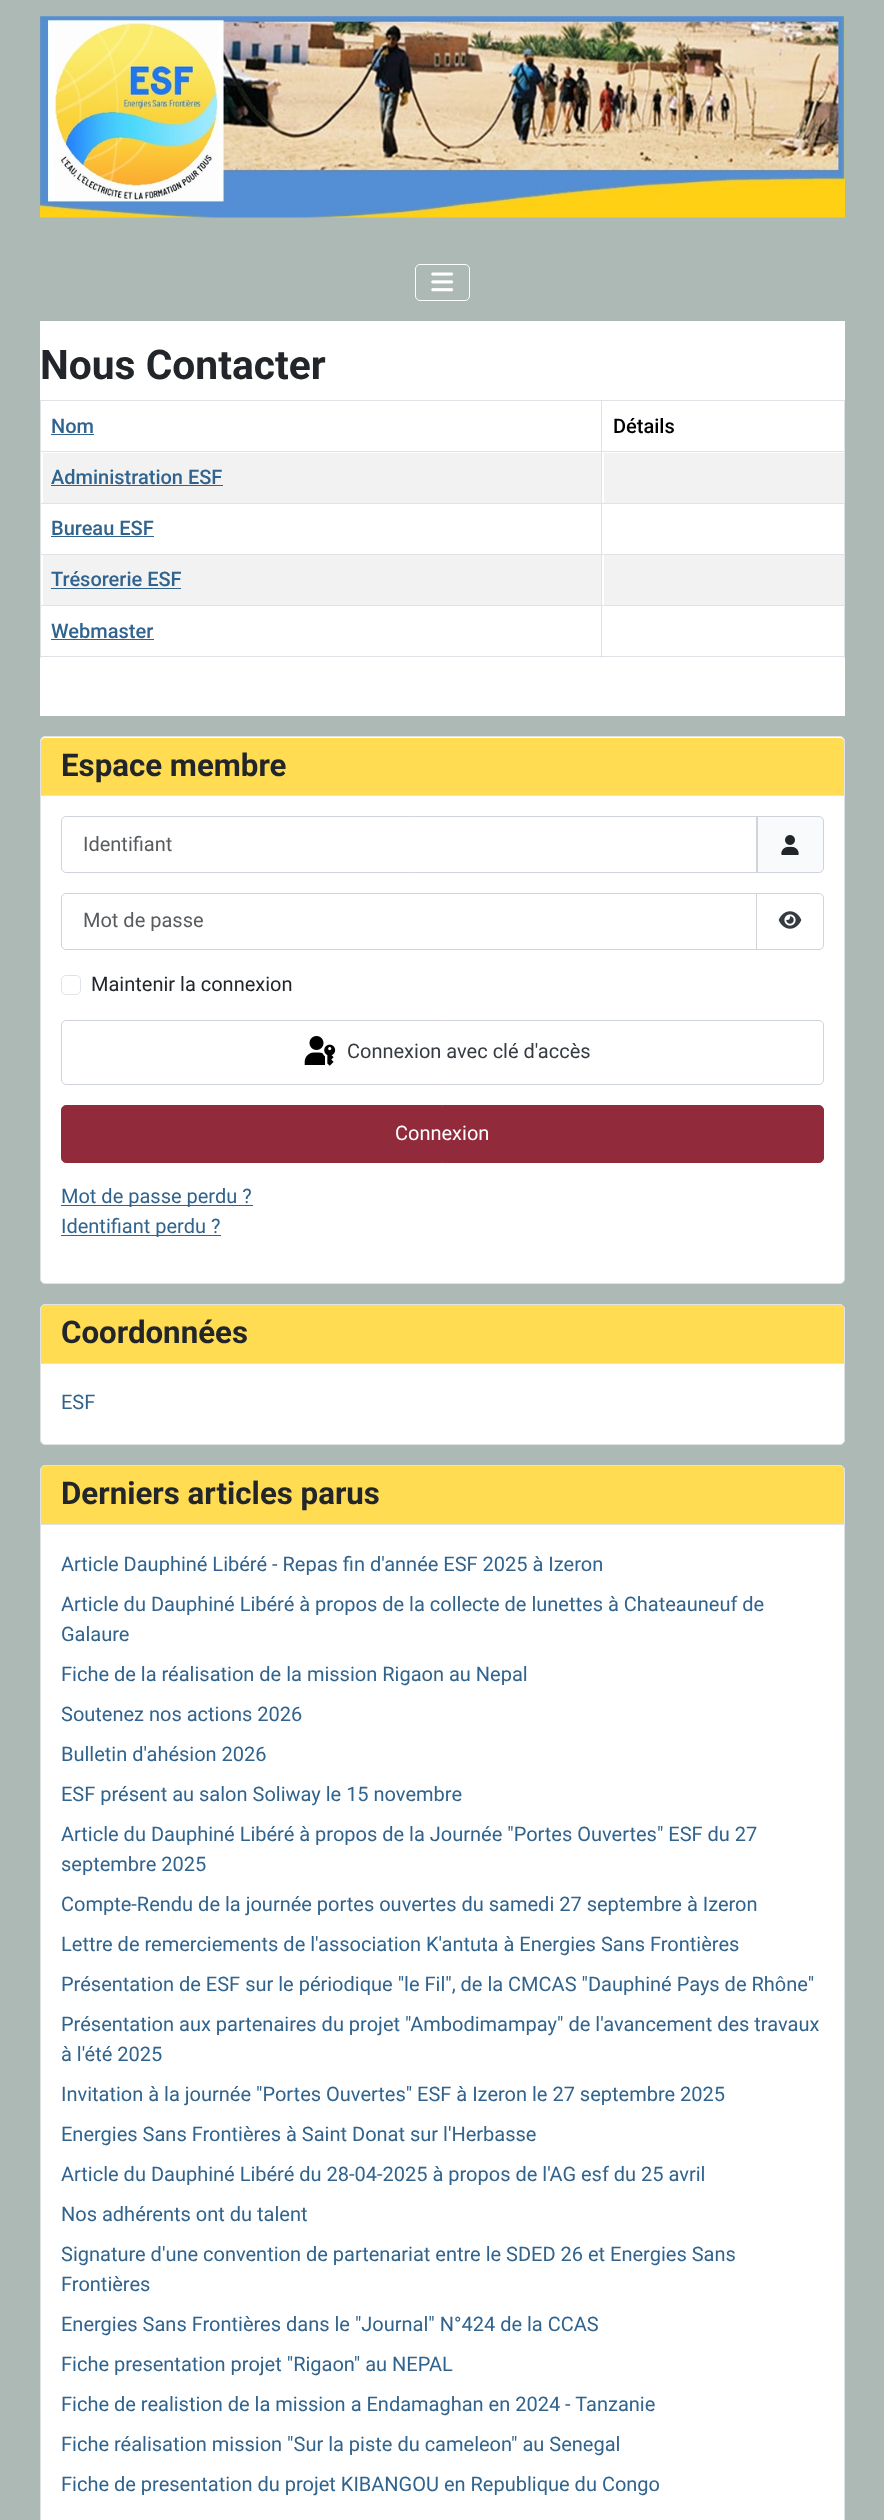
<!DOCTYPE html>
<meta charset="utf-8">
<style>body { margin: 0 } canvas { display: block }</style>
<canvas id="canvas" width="884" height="2520"></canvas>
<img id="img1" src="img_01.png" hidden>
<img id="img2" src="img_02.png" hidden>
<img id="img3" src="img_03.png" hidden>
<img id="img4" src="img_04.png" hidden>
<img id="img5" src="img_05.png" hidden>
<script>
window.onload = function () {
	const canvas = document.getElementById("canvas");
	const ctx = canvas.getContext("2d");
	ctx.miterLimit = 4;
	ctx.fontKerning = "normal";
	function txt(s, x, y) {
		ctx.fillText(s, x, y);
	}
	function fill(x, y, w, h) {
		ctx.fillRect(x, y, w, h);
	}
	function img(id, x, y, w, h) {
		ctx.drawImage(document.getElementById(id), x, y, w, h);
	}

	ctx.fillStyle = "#ACB9B5";
	fill(0, 0, 884, 2520);
	img("img1", 40, 16, 805, 202);
	ctx.beginPath();
	ctx.roundRect(415.5, 264.5, 54, 36, 4.5);
	ctx.strokeStyle = "#FFFFFF";
	ctx.stroke();
	img("img2", 431, 272, 23, 20);
	ctx.fillStyle = "#FFFFFF";
	fill(40, 321, 805, 395);
	ctx.fillStyle = "#DFE3E7";
	fill(40, 400, 805, 1);
	ctx.fillStyle = "#30638D";
	fill(51, 434, 43, 1);
	ctx.fillStyle = "#DFE3E7";
	fill(40, 451, 805, 1);
	ctx.fillStyle = "#F2F2F2";
	fill(43, 453, 558, 50);
	ctx.fillStyle = "#30638D";
	fill(51, 485, 172, 1);
	ctx.fillStyle = "#F2F2F2";
	fill(604, 453, 240, 50);
	ctx.fillStyle = "#DFE3E7";
	fill(40, 503, 805, 1);
	ctx.fillStyle = "#30638D";
	fill(51, 536, 103, 1);
	ctx.fillStyle = "#DFE3E7";
	fill(40, 554, 805, 1);
	ctx.fillStyle = "#F2F2F2";
	fill(43, 555, 558, 50);
	ctx.fillStyle = "#30638D";
	fill(51, 588, 130, 1);
	ctx.fillStyle = "#F2F2F2";
	fill(604, 555, 240, 50);
	ctx.fillStyle = "#DFE3E7";
	fill(40, 605, 805, 1);
	fill(40, 656, 805, 1);
	fill(40, 400, 1, 258);
	ctx.fillStyle = "#30638D";
	fill(51, 639, 103, 1);
	ctx.fillStyle = "#DFE3E7";
	fill(844, 400, 1, 258);
	fill(601, 400, 1, 258);
	ctx.fillStyle = "#FFFFFF";
	ctx.beginPath();
	ctx.roundRect(40.5, 736.5, 804, 547, 4.5);
	ctx.fill();
	ctx.strokeStyle = "#DFE3E7";
	ctx.stroke();
	ctx.fillStyle = "#FFDC52";
	ctx.beginPath();
	ctx.roundRect(41, 738, 803, 58, [4, 4, 0, 0]);
	ctx.fill();
	ctx.fillStyle = "#DFE3E7";
	fill(41, 795, 803, 1);
	ctx.fillStyle = "#F9FAFB";
	ctx.beginPath();
	ctx.roundRect(756.5, 816.5, 67, 56, [0, 4.5, 4.5, 0]);
	ctx.fill();
	ctx.strokeStyle = "#CED4DA";
	ctx.stroke();
	ctx.beginPath();
	ctx.roundRect(61.5, 816.5, 696, 56, [4.5, 0, 0, 4.5]);
	ctx.stroke();
	img("img3", 781, 835, 18, 20);
	ctx.beginPath();
	ctx.roundRect(61.5, 893.5, 696, 56, [4.5, 0, 0, 4.5]);
	ctx.stroke();
	ctx.fillStyle = "#FFFFFF";
	ctx.beginPath();
	ctx.roundRect(756.5, 893.5, 67, 56, [0, 4.5, 4.5, 0]);
	ctx.fill();
	ctx.stroke();
	img("img4", 778, 911, 24, 18);
	ctx.beginPath();
	ctx.roundRect(61.5, 975.5, 19, 19, 4.5);
	ctx.strokeStyle = "#DFE3E7";
	ctx.stroke();
	ctx.beginPath();
	ctx.roundRect(61.5, 1020.5, 762, 64, 4.5);
	ctx.strokeStyle = "#CED4DA";
	ctx.stroke();
	img("img5", 304, 1036, 32, 30);
	ctx.fillStyle = "#912B3B";
	ctx.beginPath();
	ctx.roundRect(61.5, 1105.5, 762, 57, 4.5);
	ctx.fill();
	ctx.strokeStyle = "#912B3B";
	ctx.stroke();
	ctx.fillStyle = "#30638D";
	fill(61, 1205, 192, 1);
	fill(61, 1235, 160, 1);
	ctx.fillStyle = "#FFFFFF";
	ctx.beginPath();
	ctx.roundRect(40.5, 1304.5, 804, 140, 4.5);
	ctx.fill();
	ctx.strokeStyle = "#DFE3E7";
	ctx.stroke();
	ctx.fillStyle = "#FFDC52";
	ctx.beginPath();
	ctx.roundRect(41, 1305, 803, 59, [4, 4, 0, 0]);
	ctx.fill();
	ctx.fillStyle = "#DFE3E7";
	fill(41, 1363, 803, 1);
	ctx.fillStyle = "#FFFFFF";
	ctx.beginPath();
	ctx.roundRect(40.5, 1465.5, 804, 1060, 4.5);
	ctx.fill();
	ctx.stroke();
	ctx.fillStyle = "#FFDC52";
	ctx.beginPath();
	ctx.roundRect(41, 1466, 803, 59, [4, 4, 0, 0]);
	ctx.fill();
	ctx.fillStyle = "#DFE3E7";
	fill(41, 1524, 803, 1);
	ctx.font = "bold 40.75px Roboto";
	ctx.fillStyle = "#22262A";
	txt("Nous Contacter", 40, 379);
	ctx.font = "500 20px Roboto";
	ctx.fillStyle = "#30638D";
	txt("Nom", 51, 433);
	ctx.fillStyle = "#000000";
	txt("Détails", 613, 433);
	ctx.fillStyle = "#30638D";
	txt("Administration ESF", 51, 484);
	txt("Bureau ESF", 51, 535);
	txt("Trésorerie ESF", 51, 586);
	txt("Webmaster", 51, 638);
	ctx.font = "bold 31.25px Roboto";
	ctx.fillStyle = "#22262A";
	txt("Espace membre", 61, 776);
	ctx.font = "20px Roboto";
	ctx.fillStyle = "#595C5F";
	txt("Identifiant", 83, 851);
	txt("Mot de passe", 83, 927);
	ctx.fillStyle = "#22262A";
	txt("Maintenir la connexion", 91, 991);
	ctx.fillStyle = "#353B41";
	txt("Connexion avec clé d'accès", 347, 1058);
	ctx.fillStyle = "#FFFFFF";
	txt("Connexion", 395, 1140);
	ctx.fillStyle = "#30638D";
	txt("Mot de passe perdu ?", 61, 1203);
	txt("Identifiant perdu ?", 61, 1233);
	ctx.font = "bold 31.25px Roboto";
	ctx.fillStyle = "#22262A";
	txt("Coordonnées", 61, 1343);
	ctx.font = "20px Roboto";
	ctx.fillStyle = "#30638D";
	txt("ESF", 61, 1409);
	ctx.font = "bold 31.25px Roboto";
	ctx.fillStyle = "#22262A";
	txt("Derniers articles parus", 61, 1504);
	ctx.font = "20px Roboto";
	ctx.fillStyle = "#30638D";
	txt("Article Dauphiné Libéré - Repas fin d'année ESF 2025 à Izeron", 61, 1571);
	txt("Article du Dauphiné Libéré à propos de la collecte de lunettes à Chateauneuf de", 61, 1611);
	txt("Galaure", 61, 1641);
	txt("Fiche de la réalisation de la mission Rigaon au Nepal", 61, 1681);
	txt("Soutenez nos actions 2026", 61, 1721);
	txt("Bulletin d'ahésion 2026", 61, 1761);
	txt("ESF présent au salon Soliway le 15 novembre", 61, 1801);
	txt("Article du Dauphiné Libéré à propos de la Journée \"Portes Ouvertes\" ESF du 27", 61, 1841);
	txt("septembre 2025", 61, 1871);
	txt("Compte-Rendu de la journée portes ouvertes du samedi 27 septembre à Izeron", 61, 1911);
	txt("Lettre de remerciements de l'association K'antuta à Energies Sans Frontières", 61, 1951);
	txt("Présentation de ESF sur le périodique \"le Fil\", de la CMCAS \"Dauphiné Pays de Rhône\"", 61, 1991);
	txt("Présentation aux partenaires du projet \"Ambodimampay\" de l'avancement des travaux", 61, 2031);
	txt("à l'été 2025", 61, 2061);
	txt("Invitation à la journée \"Portes Ouvertes\" ESF à Izeron le 27 septembre 2025", 61, 2101);
	txt("Energies Sans Frontières à Saint Donat sur l'Herbasse", 61, 2141);
	txt("Article du Dauphiné Libéré du 28-04-2025 à propos de l'AG esf du 25 avril", 61, 2181);
	txt("Nos adhérents ont du talent", 61, 2221);
	txt("Signature d'une convention de partenariat entre le SDED 26 et Energies Sans", 61, 2261);
	txt("Frontières", 61, 2291);
	txt("Energies Sans Frontières dans le \"Journal\" N°424 de la CCAS", 61, 2331);
	txt("Fiche presentation projet \"Rigaon\" au NEPAL", 61, 2371);
	txt("Fiche de realistion de la mission a Endamaghan en 2024 - Tanzanie", 61, 2411);
	txt("Fiche réalisation mission \"Sur la piste du cameleon\" au Senegal", 61, 2451);
	txt("Fiche de presentation du projet KIBANGOU en Republique du Congo", 61, 2491);
};
</script>
